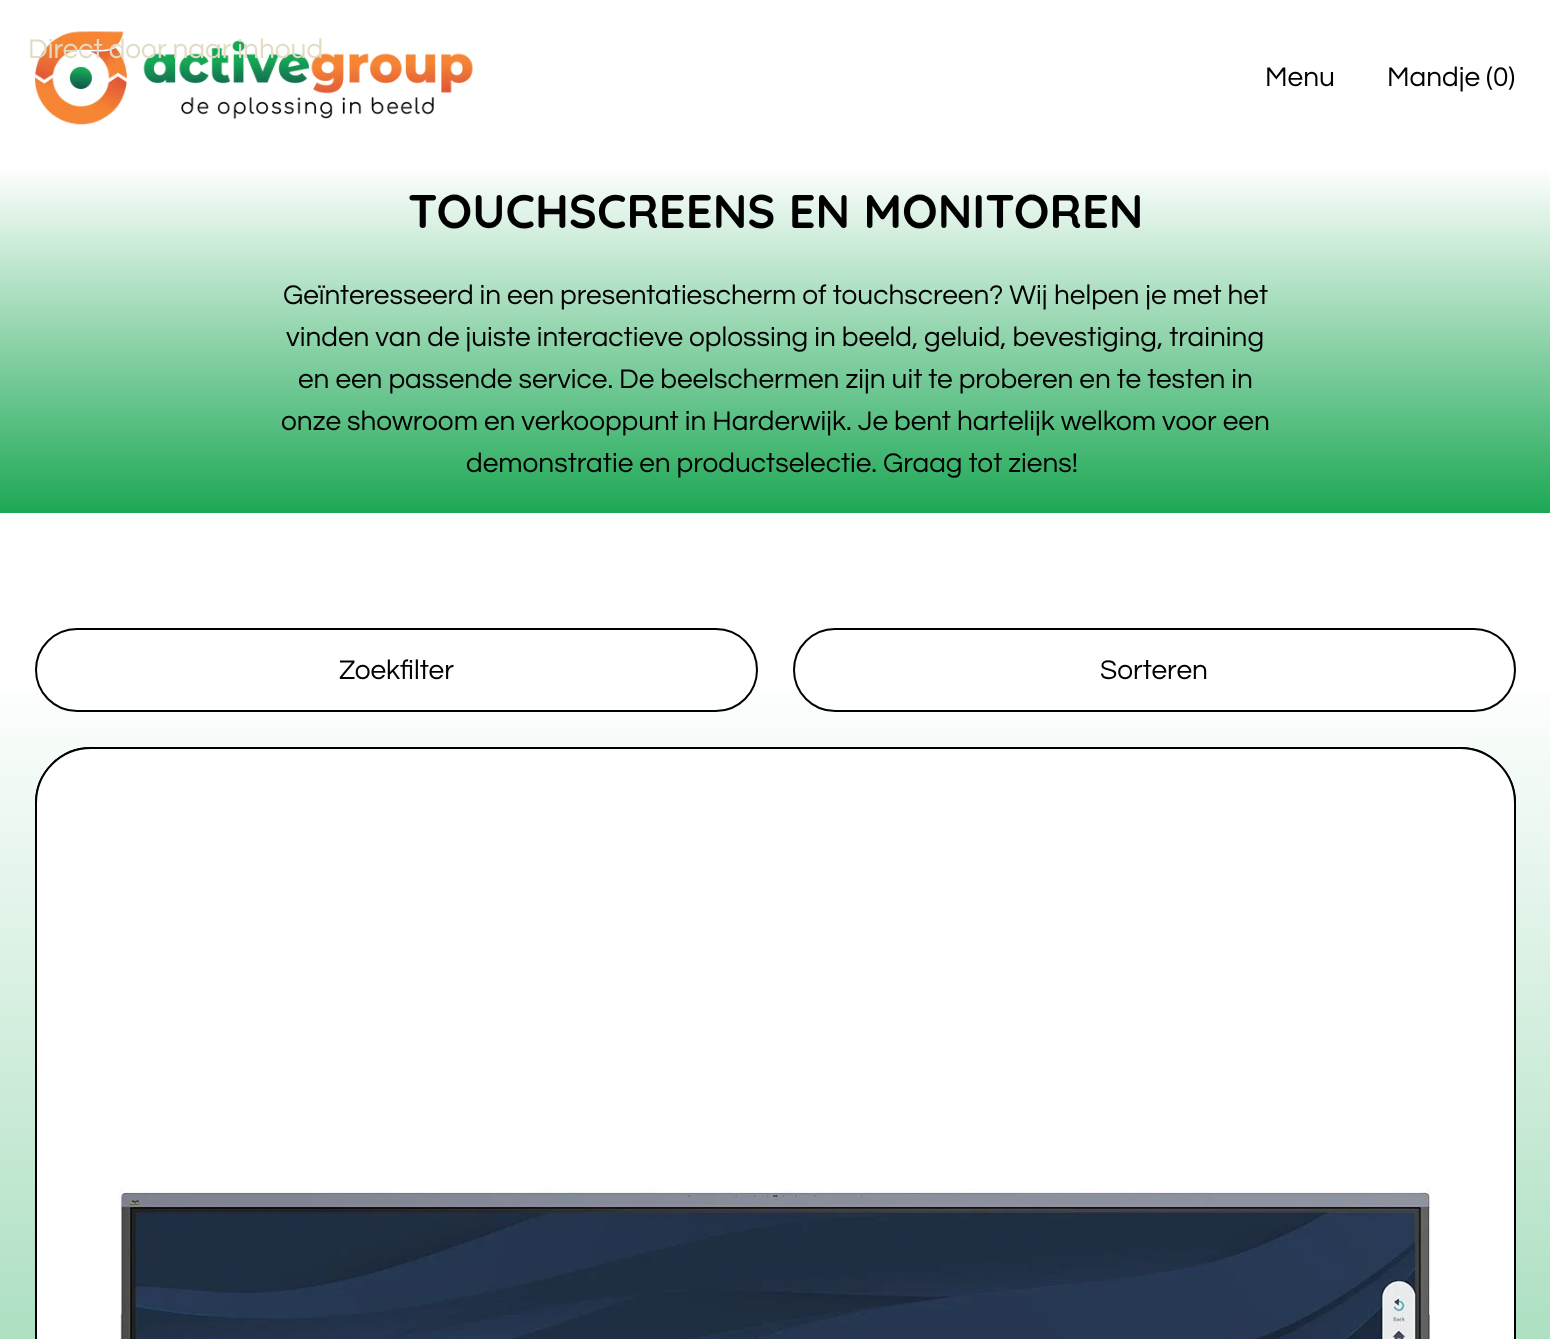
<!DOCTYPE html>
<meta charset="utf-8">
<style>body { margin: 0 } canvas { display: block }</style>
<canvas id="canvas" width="1550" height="1339"></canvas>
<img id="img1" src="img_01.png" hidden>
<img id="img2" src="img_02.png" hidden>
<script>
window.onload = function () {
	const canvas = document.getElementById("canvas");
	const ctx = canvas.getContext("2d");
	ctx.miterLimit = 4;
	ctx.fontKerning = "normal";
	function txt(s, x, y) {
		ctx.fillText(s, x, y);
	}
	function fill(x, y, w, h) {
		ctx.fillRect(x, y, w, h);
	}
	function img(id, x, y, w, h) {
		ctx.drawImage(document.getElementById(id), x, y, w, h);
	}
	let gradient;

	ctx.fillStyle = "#FFFFFF";
	fill(0, 0, 1550, 1339);
	img("img1", 35, 31, 438, 94);
	gradient = ctx.createLinearGradient(775, 513, 775, 156);
	gradient.addColorStop(0, "#1DA855");
	gradient.addColorStop(0.97, "#FFFFFF");
	ctx.fillStyle = gradient;
	fill(0, 171, 1550, 342);
	gradient = ctx.createLinearGradient(775, 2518, 775, 614);
	gradient.addColorStop(0, "#1DA855");
	gradient.addColorStop(0.97, "#FFFFFF");
	ctx.fillStyle = gradient;
	fill(0, 692, 1550, 647);
	ctx.fillStyle = "#FFFFFF";
	ctx.beginPath();
	ctx.roundRect(36, 629, 721, 82, 41);
	ctx.fill();
	ctx.strokeStyle = "#000000";
	ctx.lineWidth = 2;
	ctx.stroke();
	ctx.beginPath();
	ctx.roundRect(794, 629, 721, 82, 41);
	ctx.fill();
	ctx.stroke();
	ctx.beginPath();
	ctx.roundRect(36, 748, 1479, 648, 55);
	ctx.stroke();
	ctx.beginPath();
	ctx.roundRect(36, 748, 1479, 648, 55);
	ctx.fill();
	ctx.stroke();
	img("img2", 119, 1188, 1312, 151);
	ctx.font = "28px Questrial";
	ctx.fillStyle = "#E3DCC5";
	txt("Direct door naar inhoud", 28, 58);
	ctx.fillStyle = "#000000";
	txt("Menu", 1265, 86);
	txt("Mandje (0)", 1387, 86);
	ctx.font = "bold 47.1px Quicksand";
	txt("TOUCHSCREENS EN MONITOREN", 408, 228);
	ctx.font = "28px Questrial";
	txt("Geïnteresseerd in een presentatiescherm of touchscreen? Wij helpen je met het", 283, 304);
	txt("vinden van de juiste interactieve oplossing in beeld, geluid, bevestiging, training", 286, 346);
	txt("en een passende service. De beelschermen zijn uit te proberen en te testen in", 298, 388);
	txt("onze showroom en verkooppunt in Harderwijk. Je bent hartelijk welkom voor een", 281, 430);
	txt("demonstratie en productselectie. Graag tot ziens!", 466, 472);
	txt("Zoekfilter", 339, 679);
	txt("Sorteren", 1100, 679);
};
</script>
